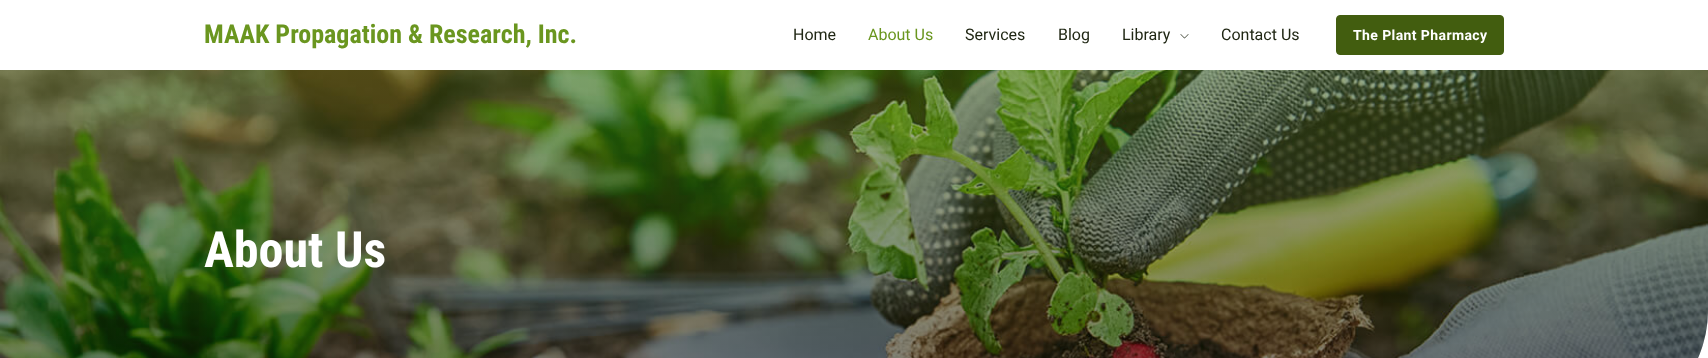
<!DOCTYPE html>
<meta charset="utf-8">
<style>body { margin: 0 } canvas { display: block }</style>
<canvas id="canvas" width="1708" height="358"></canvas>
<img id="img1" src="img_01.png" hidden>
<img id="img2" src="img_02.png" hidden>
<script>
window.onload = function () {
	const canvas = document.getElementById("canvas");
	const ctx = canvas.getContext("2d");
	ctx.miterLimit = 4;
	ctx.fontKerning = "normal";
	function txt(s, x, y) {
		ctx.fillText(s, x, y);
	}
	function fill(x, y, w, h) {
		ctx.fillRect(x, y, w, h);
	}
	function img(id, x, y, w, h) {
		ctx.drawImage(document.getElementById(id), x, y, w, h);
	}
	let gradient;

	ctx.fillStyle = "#FFFFFF";
	fill(0, 0, 1708, 358);
	img("img1", 1180, 34, 9, 5);
	ctx.fillStyle = "#425D0F";
	ctx.beginPath();
	ctx.roundRect(1336.5, 15.5, 167, 39, 3.5);
	ctx.fill();
	ctx.strokeStyle = "#425D0F";
	ctx.stroke();
	img("img2", 0, 70, 1708, 288);
	gradient = ctx.createLinearGradient(854, 70, 854, 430);
	gradient.addColorStop(0, "rgba(66, 93, 15, 0.5)");
	gradient.addColorStop(1, "rgba(0, 0, 0, 0.5)");
	ctx.fillStyle = gradient;
	ctx.beginPath();
	ctx.moveTo(0, 70);
	ctx.lineTo(1708, 70);
	ctx.lineTo(1708, 310);
	ctx.bezierCurveTo(1708, 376.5, 1654.5, 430, 1588, 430);
	ctx.lineTo(0, 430);
	ctx.closePath();
	ctx.fill();
	ctx.font = "bold 26px Roboto Condensed";
	ctx.fillStyle = "#6A961F";
	txt("MAAK Propagation & Research, Inc.", 204, 43);
	ctx.font = "16px Roboto";
	ctx.fillStyle = "#202714";
	txt("Home", 793, 40);
	ctx.fillStyle = "#6A961F";
	txt("About Us", 868, 40);
	ctx.fillStyle = "#202714";
	txt("Services", 965, 40);
	txt("Blog", 1058, 40);
	txt("Library", 1122, 40);
	txt("Contact Us", 1221, 40);
	ctx.letterSpacing = "0.4px";
	ctx.font = "bold 14px Roboto";
	ctx.fillStyle = "#FFFFFF";
	txt("The Plant Pharmacy", 1353, 40);
	ctx.letterSpacing = "0px";
	ctx.font = "bold 50px Roboto Condensed";
	txt("About Us", 204, 267);
};
</script>
